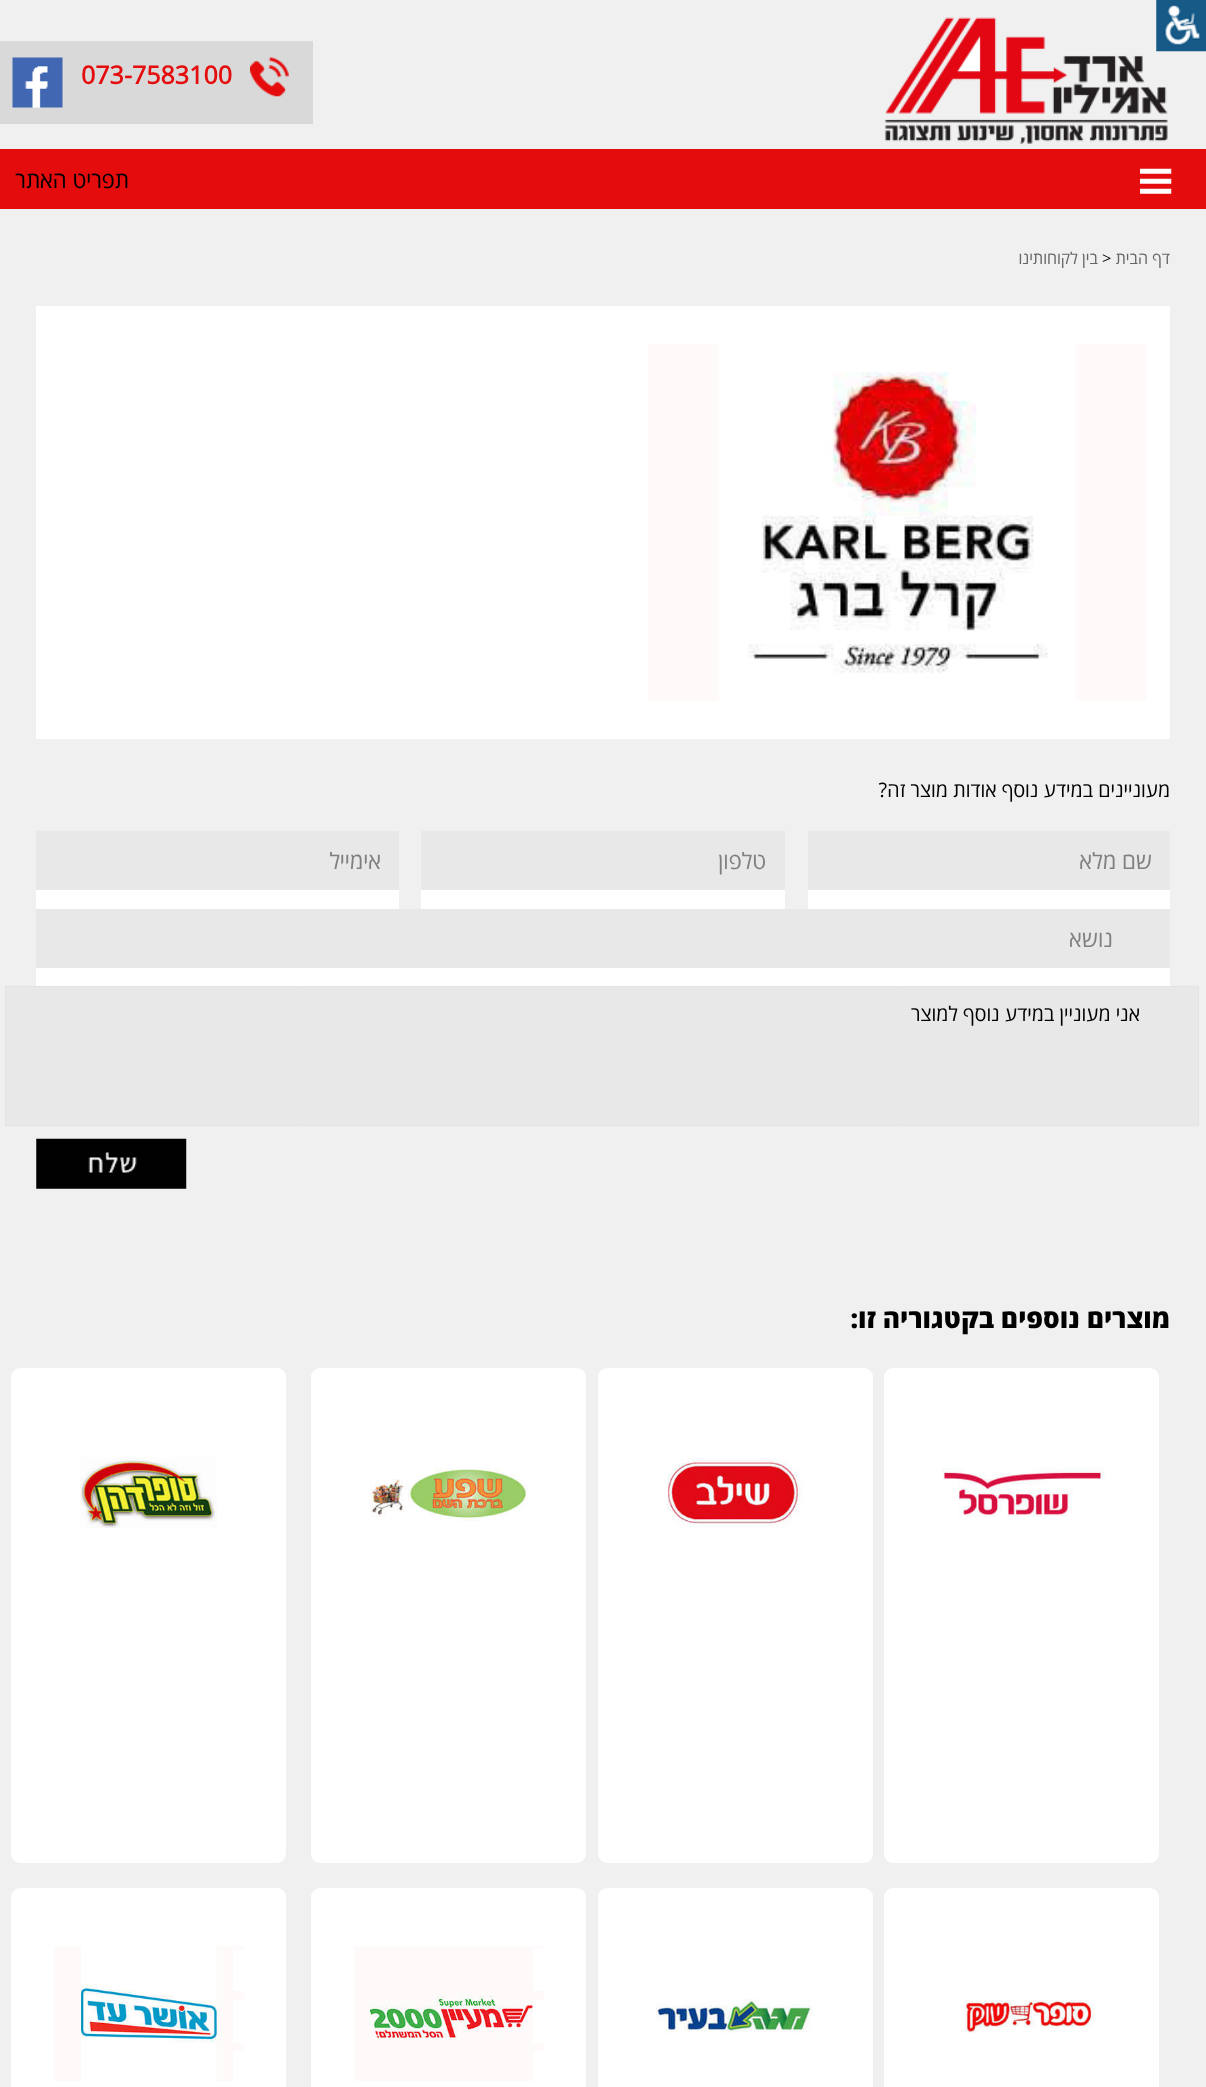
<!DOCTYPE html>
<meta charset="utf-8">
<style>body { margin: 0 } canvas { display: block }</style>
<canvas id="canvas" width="1206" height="2087"></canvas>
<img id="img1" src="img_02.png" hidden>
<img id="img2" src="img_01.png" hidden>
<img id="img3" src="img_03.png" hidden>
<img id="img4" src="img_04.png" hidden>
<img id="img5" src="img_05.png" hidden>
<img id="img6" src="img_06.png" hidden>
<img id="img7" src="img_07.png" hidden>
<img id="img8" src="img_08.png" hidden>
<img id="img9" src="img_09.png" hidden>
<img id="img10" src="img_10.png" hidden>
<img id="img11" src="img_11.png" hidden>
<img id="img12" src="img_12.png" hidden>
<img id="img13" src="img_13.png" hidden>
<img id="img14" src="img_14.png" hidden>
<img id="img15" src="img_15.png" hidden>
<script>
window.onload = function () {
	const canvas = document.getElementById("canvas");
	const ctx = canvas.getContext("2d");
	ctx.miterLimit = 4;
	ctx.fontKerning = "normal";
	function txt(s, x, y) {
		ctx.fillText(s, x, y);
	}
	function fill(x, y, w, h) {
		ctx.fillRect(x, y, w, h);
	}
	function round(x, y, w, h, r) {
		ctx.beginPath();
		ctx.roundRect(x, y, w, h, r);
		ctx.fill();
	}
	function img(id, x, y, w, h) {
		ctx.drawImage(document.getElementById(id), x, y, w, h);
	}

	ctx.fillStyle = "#F0F0F0";
	fill(0, 0, 1206, 2087);
	img("img1", 884, 17, 284, 127);
	img("img2", 1156, 0, 50, 52);
	ctx.fillStyle = "#D9D9D9";
	fill(0, 41, 313, 83);
	img("img3", 250, 57, 39, 40);
	img("img4", 12, 57, 51, 51);
	ctx.fillStyle = "#E40C0D";
	fill(0, 149, 1206, 60);
	img("img5", 1140, 168, 32, 26);
	ctx.fillStyle = "#FFFFFF";
	fill(36, 306, 1134, 433);
	img("img6", 648, 344, 499, 357);
	fill(808, 890, 362, 19);
	ctx.fillStyle = "#E8E8E8";
	fill(808, 831, 362, 59);
	ctx.fillStyle = "#FFFFFF";
	fill(421, 890, 364, 19);
	ctx.fillStyle = "#E8E8E8";
	fill(421, 831, 364, 59);
	ctx.fillStyle = "#FFFFFF";
	fill(36, 890, 363, 19);
	ctx.fillStyle = "#E8E8E8";
	fill(36, 831, 363, 59);
	ctx.fillStyle = "#FFFFFF";
	fill(36, 968, 1134, 18);
	ctx.fillStyle = "#E8E8E8";
	fill(36, 909, 1134, 59);
	ctx.beginPath();
	ctx.rect(5.5, 986.5, 1193, 139);
	ctx.fill();
	ctx.strokeStyle = "#E3E3E7";
	ctx.stroke();
	img("img7", 36, 1138, 151, 51);
	ctx.fillStyle = "#FFFFFF";
	round(884, 1368, 275, 495, 9);
	img("img8", 942, 1468, 164, 49);
	fill(1105, 1468, 1, 2);
	round(598, 1368, 275, 495, 9);
	img("img9", 667, 1457, 136, 71);
	round(311, 1368, 275, 495, 9);
	img("img10", 370, 1468, 158, 54);
	round(11, 1368, 275, 495, 9);
	img("img11", 80, 1457, 137, 71);
	round(884, 1888, 275, 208, 9);
	img("img12", 964, 2000, 131, 33);
	round(598, 1888, 275, 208, 9);
	img("img13", 656, 1999, 158, 34);
	round(311, 1888, 275, 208, 9);
	img("img14", 354, 1946, 190, 135);
	fill(533, 1949, 11, 42);
	fill(533, 2000, 11, 43);
	fill(533, 2051, 11, 30);
	round(11, 1888, 275, 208, 9);
	img("img15", 54, 1946, 190, 135);
	fill(233, 1949, 11, 42);
	fill(233, 2000, 11, 43);
	fill(233, 2051, 11, 30);
	ctx.font = "bold 25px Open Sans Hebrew";
	ctx.fillStyle = "#E40C0D";
	txt("073-7583100", 81, 84);
	ctx.direction = "rtl";
	ctx.font = "22.5px Open Sans Hebrew";
	ctx.fillStyle = "#000000";
	txt("תפריט האתר", 129, 188);
	ctx.font = "16.25px Open Sans Hebrew";
	ctx.fillStyle = "#666666";
	txt("דף הבית", 1170, 264);
	ctx.direction = "ltr";
	ctx.fillStyle = "#000000";
	txt(">", 1102, 264);
	ctx.direction = "rtl";
	ctx.fillStyle = "#666666";
	txt("בין לקוחותינו", 1098, 264);
	ctx.font = "20px Open Sans Hebrew";
	ctx.fillStyle = "#000000";
	txt("מעוניינים במידע נוסף אודות מוצר זה?", 1170, 797);
	ctx.font = "22.5px Open Sans Hebrew";
	ctx.fillStyle = "#808080";
	txt("שם מלא", 1152, 869);
	txt("טלפון", 766, 869);
	txt("אימייל", 381, 869);
	txt("נושא", 1113, 947);
	ctx.font = "20px Open Sans Hebrew";
	ctx.fillStyle = "#000000";
	txt("אני מעוניין במידע נוסף למוצר", 1140, 1021);
	ctx.font = "800 26.25px Open Sans Hebrew";
	txt("מוצרים נוספים בקטגוריה זו:", 1170, 1328);
};
</script>
